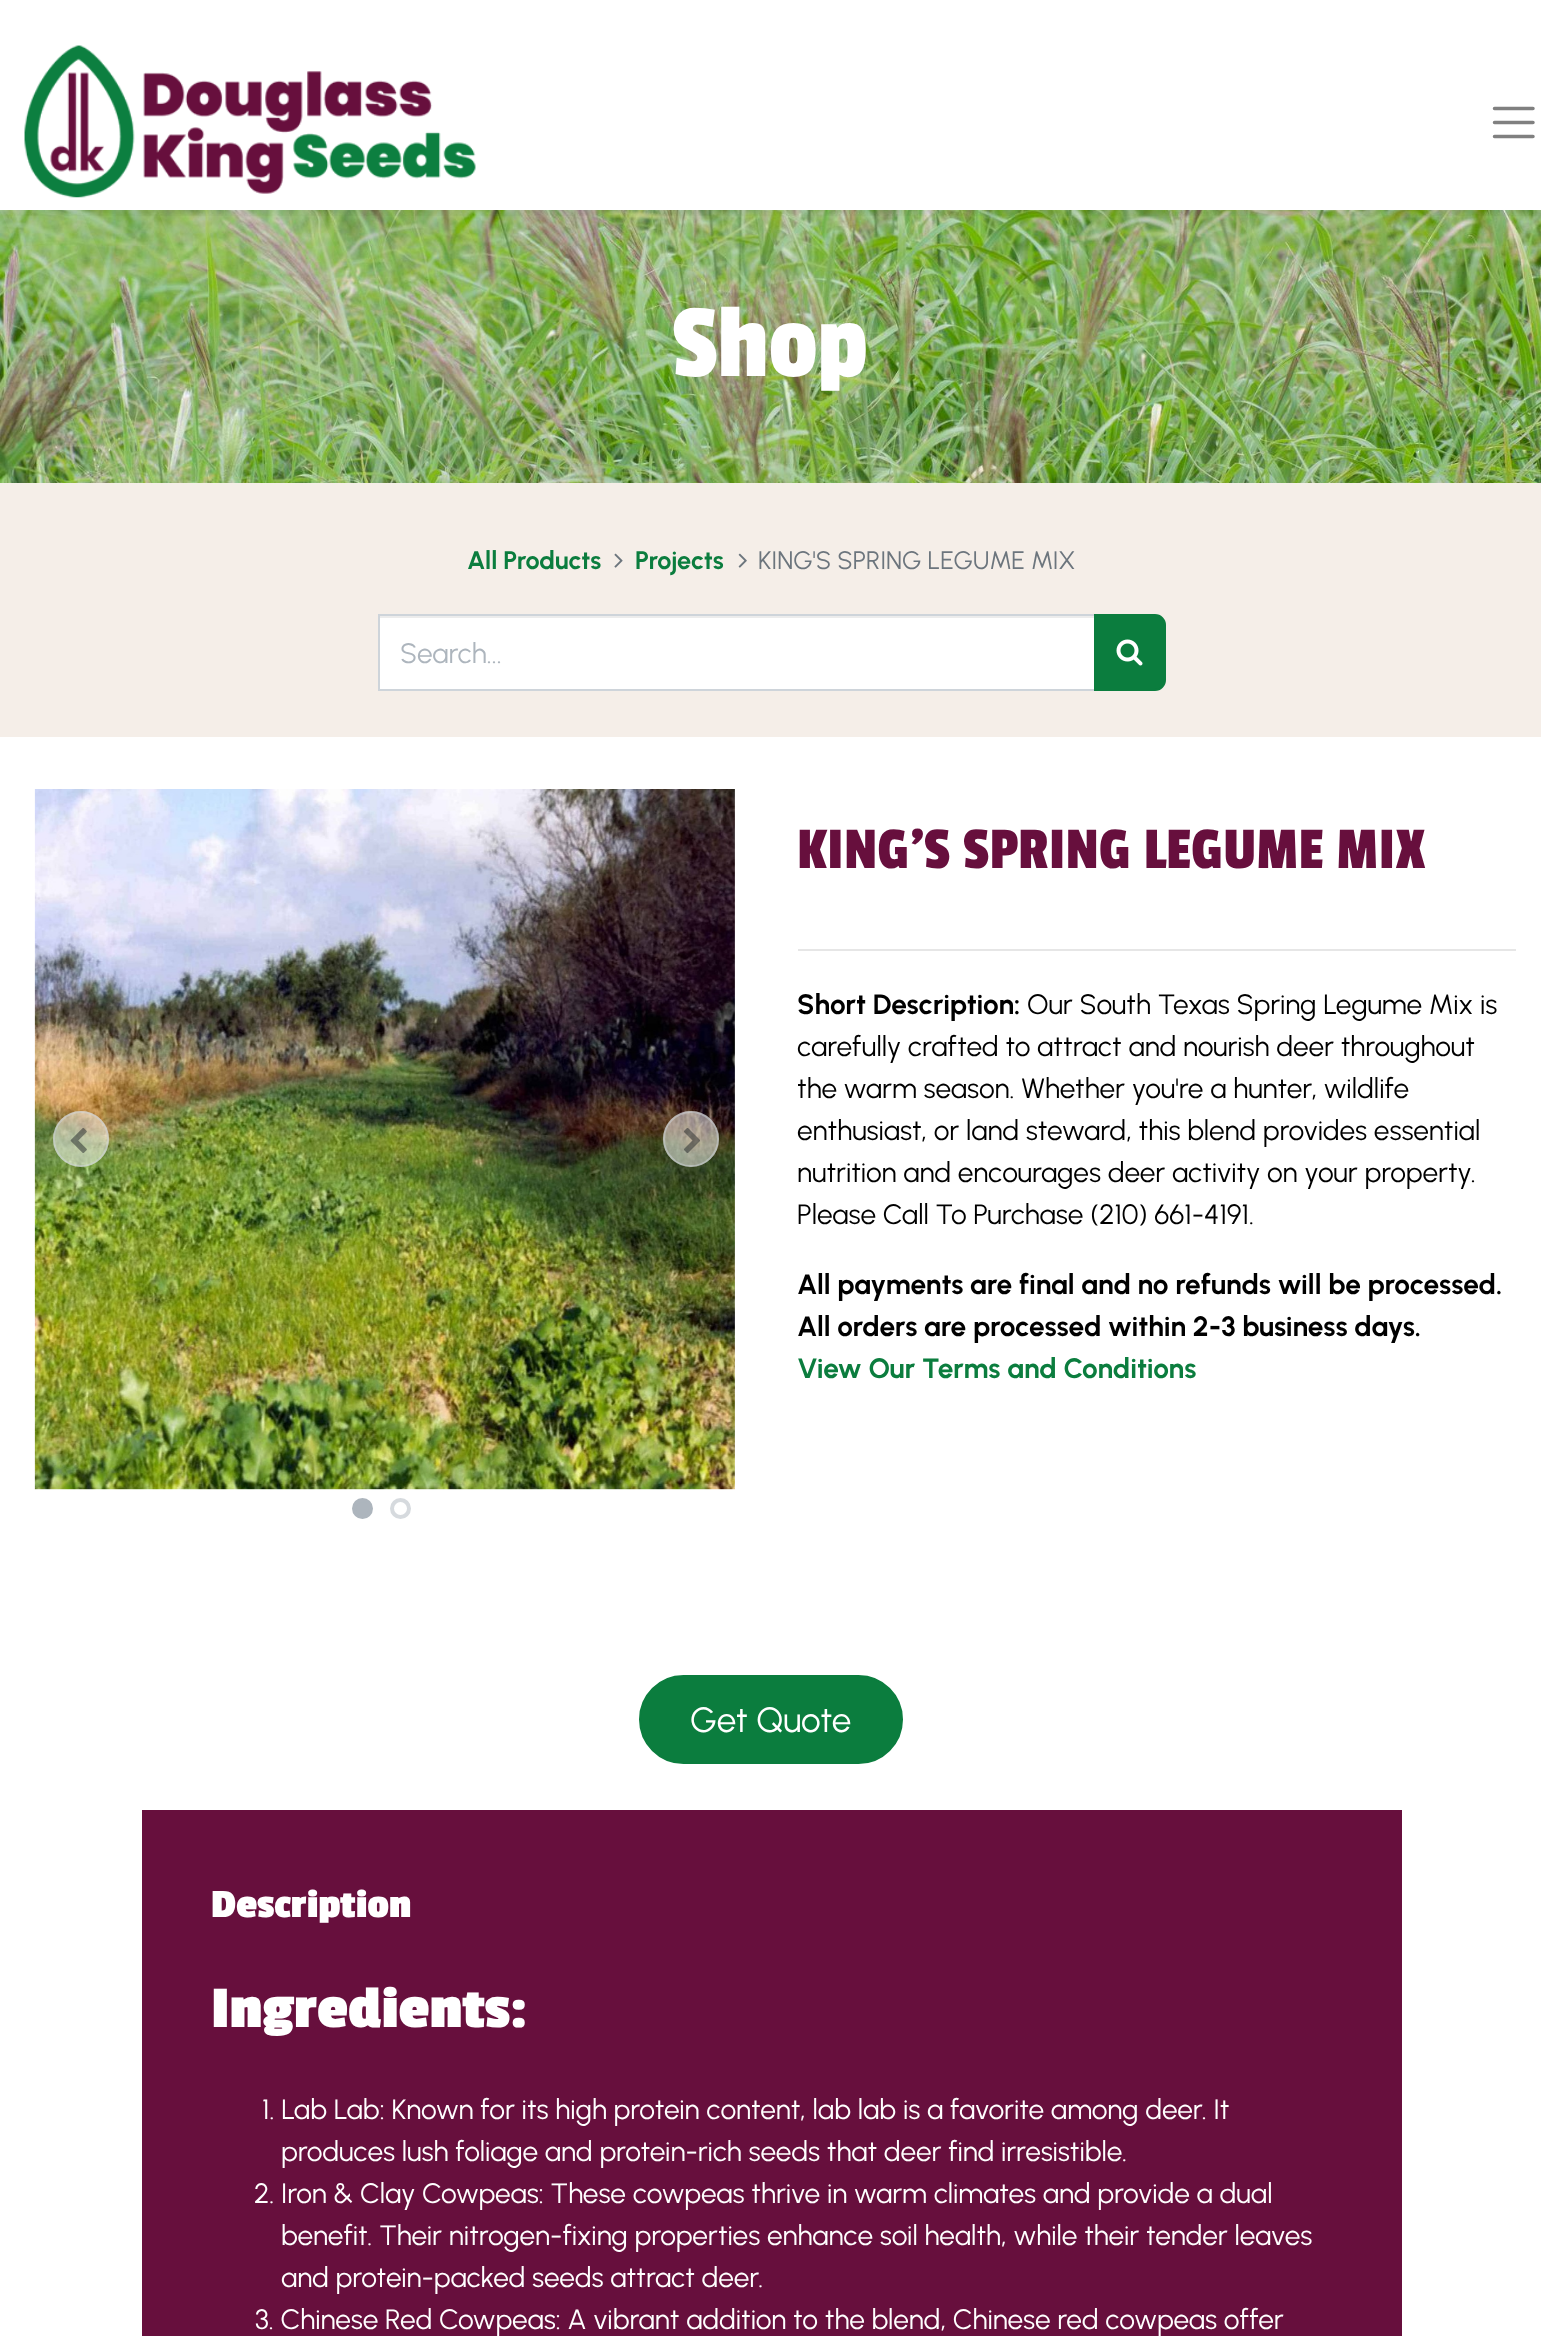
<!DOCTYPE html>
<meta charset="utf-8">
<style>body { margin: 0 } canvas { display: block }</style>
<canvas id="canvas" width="1541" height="2336"></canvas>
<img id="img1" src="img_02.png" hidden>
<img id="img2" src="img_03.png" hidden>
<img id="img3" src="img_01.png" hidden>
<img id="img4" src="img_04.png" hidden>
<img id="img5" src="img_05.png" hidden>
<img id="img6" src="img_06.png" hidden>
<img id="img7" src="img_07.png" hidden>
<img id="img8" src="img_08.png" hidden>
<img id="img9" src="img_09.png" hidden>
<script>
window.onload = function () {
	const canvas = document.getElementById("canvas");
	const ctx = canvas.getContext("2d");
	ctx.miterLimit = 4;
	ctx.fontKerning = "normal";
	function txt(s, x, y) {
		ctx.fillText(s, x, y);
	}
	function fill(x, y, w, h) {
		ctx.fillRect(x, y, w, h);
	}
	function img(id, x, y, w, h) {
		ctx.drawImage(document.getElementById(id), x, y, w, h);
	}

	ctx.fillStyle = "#FFFFFF";
	fill(0, 0, 1541, 2336);
	img("img1", 0, 210, 1541, 273);
	img("img2", 0, 210, 1471, 273);
	ctx.save();
	ctx.beginPath();
	ctx.rect(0, 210, 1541, 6);
	ctx.clip();
	ctx.fillStyle = "rgba(0, 0, 0, 0.07)";
	ctx.filter = "blur(3.5px)";
	ctx.beginPath();
	ctx.rect(0, 4, 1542, 210);
	ctx.fill();
	ctx.filter = "none";
	ctx.restore();
	img("img3", 24, 45, 452, 153);
	ctx.beginPath();
	ctx.moveTo(1494.5, 108.5);
	ctx.lineTo(1533, 108.5);
	ctx.moveTo(1494.5, 122.5);
	ctx.lineTo(1533, 122.5);
	ctx.moveTo(1494.5, 136.5);
	ctx.lineTo(1533, 136.5);
	ctx.strokeStyle = "#808080";
	ctx.lineWidth = 3.5;
	ctx.lineCap = "round";
	ctx.stroke();
	ctx.fillStyle = "#F5EEE8";
	fill(0, 483, 1541, 254);
	img("img4", 614, 553, 9, 15);
	img("img5", 738, 553, 9, 15);
	ctx.fillStyle = "#FFFFFF";
	fill(380, 618, 714, 71);
	ctx.fillStyle = "#ECECEC";
	fill(380, 616, 714, 2);
	ctx.strokeStyle = "#CED4DA";
	ctx.lineWidth = 2;
	ctx.strokeRect(379, 615, 716, 75);
	ctx.fillStyle = "#0B7D3E";
	ctx.beginPath();
	ctx.roundRect(1095, 615, 70, 75, [0, 10, 10, 0]);
	ctx.fill();
	ctx.strokeStyle = "#0B7D3E";
	ctx.stroke();
	img("img6", 1116, 639, 27, 27);
	img("img7", 34, 789, 701, 701);
	ctx.fillStyle = "rgba(255, 255, 255, 0.5)";
	ctx.beginPath();
	ctx.arc(81, 1139, 28, 0, Math.PI * 2);
	ctx.fill();
	ctx.beginPath();
	ctx.arc(81, 1139, 27, 0, Math.PI * 2);
	ctx.strokeStyle = "rgba(206, 212, 218, 0.5)";
	ctx.stroke();
	img("img8", 70, 1128, 17, 25);
	ctx.beginPath();
	ctx.arc(691, 1139, 28, 0, Math.PI * 2);
	ctx.fill();
	ctx.beginPath();
	ctx.arc(691, 1139, 27, 0, Math.PI * 2);
	ctx.stroke();
	img("img9", 684, 1128, 16, 25);
	ctx.fillStyle = "#ADB5BD";
	ctx.beginPath();
	ctx.arc(362.5, 1508.5, 8.5, 0, Math.PI * 2);
	ctx.fill();
	ctx.strokeStyle = "#ADB5BD";
	ctx.lineWidth = 4;
	ctx.stroke();
	ctx.beginPath();
	ctx.arc(400.5, 1508.5, 8.5, 0, Math.PI * 2);
	ctx.strokeStyle = "#D6DADE";
	ctx.stroke();
	ctx.fillStyle = "#E6E6E6";
	fill(798, 949, 718, 2);
	ctx.fillStyle = "#0B7D3E";
	ctx.beginPath();
	ctx.roundRect(640, 1676, 262, 87, 43.5);
	ctx.fill();
	ctx.strokeStyle = "#0B7D3E";
	ctx.lineWidth = 2;
	ctx.stroke();
	ctx.fillStyle = "#670F3D";
	fill(142, 1810, 1260, 526);
	ctx.font = "108px Passion One";
	ctx.fillStyle = "#FFFFFF";
	txt("Shop", 672, 376);
	ctx.font = "bold 25.25px Urbanist";
	ctx.fillStyle = "#0B7D3E";
	txt("All Products", 467, 569);
	txt("Projects", 635, 569);
	ctx.font = "25.25px Urbanist";
	ctx.fillStyle = "#6C757D";
	txt("KING'S SPRING LEGUME MIX", 758, 569);
	ctx.font = "28px Urbanist";
	ctx.fillStyle = "#ADB5BD";
	txt("Search...", 400, 663);
	ctx.font = "61.6px Passion One";
	ctx.fillStyle = "#670F3D";
	txt("KING'S SPRING LEGUME MIX", 797, 868);
	ctx.font = "bold 28px Urbanist";
	ctx.fillStyle = "#000000";
	txt("Short Description:", 797, 1014);
	ctx.font = "28px Urbanist";
	txt("Our South Texas Spring Legume Mix is", 1027, 1014);
	txt("carefully crafted to attract and nourish deer throughout", 797, 1056);
	txt("the warm season. Whether you're a hunter, wildlife", 797, 1098);
	txt("enthusiast, or land steward, this blend provides essential", 797, 1140);
	txt("nutrition and encourages deer activity on your property.", 797, 1182);
	txt("Please Call To Purchase (210) 661-4191.", 797, 1224);
	ctx.font = "bold 28px Urbanist";
	txt("All payments are final and no refunds will be processed.", 797, 1294);
	txt("All orders are processed within 2-3 business days.", 797, 1336);
	ctx.fillStyle = "#0B7D3E";
	txt("View Our Terms and Conditions", 797, 1378);
	ctx.font = "35px Urbanist";
	ctx.fillStyle = "#FFFFFF";
	txt("Get Quote", 690, 1732);
	ctx.font = "bold 42px Passion One";
	txt("Description", 211, 1917);
	ctx.font = "bold 61.6px Passion One";
	txt("Ingredients:", 211, 2027);
	ctx.font = "28px Urbanist";
	txt("1. Lab Lab: Known for its high protein content, lab lab is a favorite among deer. It", 262, 2119);
	txt("produces lush foliage and protein-rich seeds that deer find irresistible.", 281, 2161);
	txt("2. Iron & Clay Cowpeas: These cowpeas thrive in warm climates and provide a dual", 254, 2203);
	txt("benefit. Their nitrogen-fixing properties enhance soil health, while their tender leaves", 281, 2245);
	txt("and protein-packed seeds attract deer.", 281, 2287);
	txt("3. Chinese Red Cowpeas: A vibrant addition to the blend, Chinese red cowpeas offer", 255, 2329);
};
</script>
